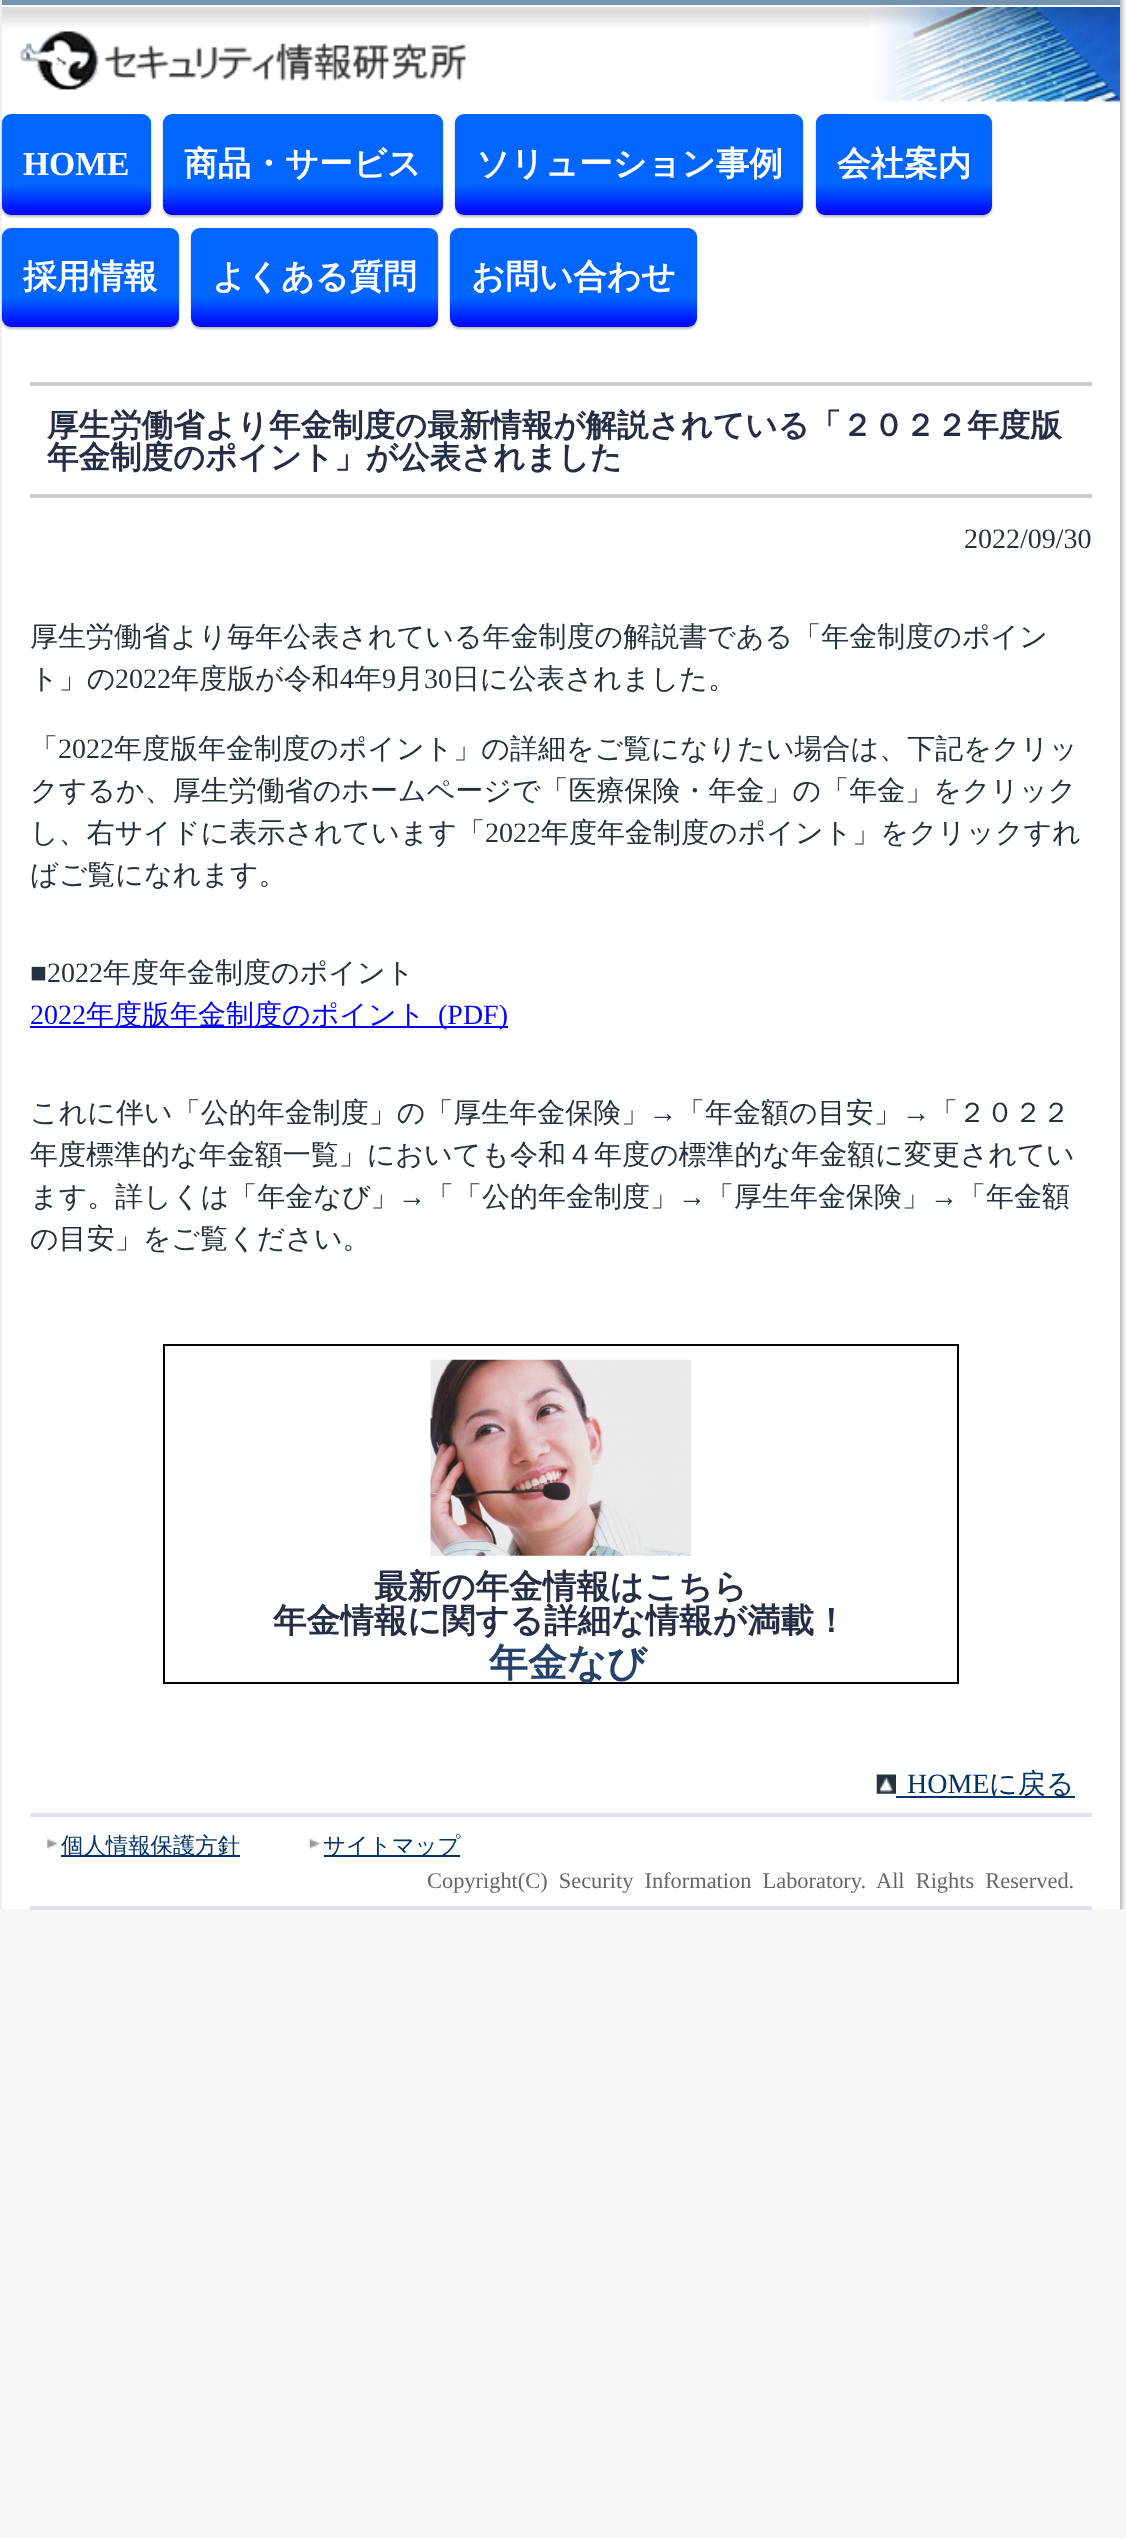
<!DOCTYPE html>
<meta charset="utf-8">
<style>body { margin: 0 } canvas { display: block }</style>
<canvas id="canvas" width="1126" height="2538"></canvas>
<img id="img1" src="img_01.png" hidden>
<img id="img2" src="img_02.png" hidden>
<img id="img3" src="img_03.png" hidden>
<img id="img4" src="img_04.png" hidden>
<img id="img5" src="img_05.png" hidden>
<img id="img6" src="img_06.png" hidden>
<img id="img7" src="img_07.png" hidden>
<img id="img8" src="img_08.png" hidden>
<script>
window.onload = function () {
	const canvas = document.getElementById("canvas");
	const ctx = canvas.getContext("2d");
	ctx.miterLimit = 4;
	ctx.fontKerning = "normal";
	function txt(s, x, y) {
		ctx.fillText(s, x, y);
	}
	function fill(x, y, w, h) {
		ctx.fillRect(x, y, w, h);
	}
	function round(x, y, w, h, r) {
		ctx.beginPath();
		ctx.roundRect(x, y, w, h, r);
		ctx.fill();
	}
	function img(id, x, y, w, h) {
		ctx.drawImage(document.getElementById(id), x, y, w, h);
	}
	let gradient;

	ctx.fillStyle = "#F6F6F6";
	fill(0, 0, 1126, 2538);
	ctx.fillStyle = "#FFFFFF";
	fill(2, 5, 1118, 1904);
	img("img1", 1120, 0, 6, 1910);
	ctx.fillStyle = "#EFEFEF";
	fill(0, 0, 2, 1909);
	img("img2", 1, 7, 869, 33);
	ctx.fillStyle = "#7393B0";
	fill(2, 0, 1118, 5);
	img("img3", 20, 31, 446, 59);
	img("img4", 870, 7, 250, 95);
	ctx.fillStyle = "rgba(0, 0, 0, 0.28)";
	ctx.filter = "blur(1px)";
	ctx.beginPath();
	ctx.roundRect(2, 116, 149, 101, 9);
	ctx.fill();
	ctx.filter = "none";
	gradient = ctx.createLinearGradient(76, 114, 76, 215);
	gradient.addColorStop(0, "#0066FF");
	gradient.addColorStop(0.7, "#0066FF");
	gradient.addColorStop(1, "#0000FF");
	ctx.fillStyle = gradient;
	round(2, 114, 149, 101, 9);
	ctx.fillStyle = "rgba(0, 0, 0, 0.28)";
	ctx.filter = "blur(1px)";
	ctx.beginPath();
	ctx.roundRect(163, 116, 280, 101, 9);
	ctx.fill();
	ctx.filter = "none";
	gradient = ctx.createLinearGradient(303, 114, 303, 215);
	gradient.addColorStop(0, "#0066FF");
	gradient.addColorStop(0.7, "#0066FF");
	gradient.addColorStop(1, "#0000FF");
	ctx.fillStyle = gradient;
	round(163, 114, 280, 101, 9);
	ctx.fillStyle = "rgba(0, 0, 0, 0.28)";
	ctx.filter = "blur(1px)";
	ctx.beginPath();
	ctx.roundRect(455, 116, 348, 101, 9);
	ctx.fill();
	ctx.filter = "none";
	gradient = ctx.createLinearGradient(629, 114, 629, 215);
	gradient.addColorStop(0, "#0066FF");
	gradient.addColorStop(0.7, "#0066FF");
	gradient.addColorStop(1, "#0000FF");
	ctx.fillStyle = gradient;
	round(455, 114, 348, 101, 9);
	ctx.fillStyle = "rgba(0, 0, 0, 0.28)";
	ctx.filter = "blur(1px)";
	ctx.beginPath();
	ctx.roundRect(816, 116, 176, 101, 9);
	ctx.fill();
	ctx.filter = "none";
	gradient = ctx.createLinearGradient(904, 114, 904, 215);
	gradient.addColorStop(0, "#0066FF");
	gradient.addColorStop(0.7, "#0066FF");
	gradient.addColorStop(1, "#0000FF");
	ctx.fillStyle = gradient;
	round(816, 114, 176, 101, 9);
	ctx.fillStyle = "rgba(0, 0, 0, 0.28)";
	ctx.filter = "blur(1px)";
	ctx.beginPath();
	ctx.roundRect(2, 229, 177, 100, 9);
	ctx.fill();
	ctx.filter = "none";
	gradient = ctx.createLinearGradient(90, 228, 90, 327);
	gradient.addColorStop(0, "#0066FF");
	gradient.addColorStop(0.7, "#0066FF");
	gradient.addColorStop(1, "#0000FF");
	ctx.fillStyle = gradient;
	round(2, 228, 177, 99, 9);
	ctx.fillStyle = "rgba(0, 0, 0, 0.28)";
	ctx.filter = "blur(1px)";
	ctx.beginPath();
	ctx.roundRect(191, 229, 247, 100, 9);
	ctx.fill();
	ctx.filter = "none";
	gradient = ctx.createLinearGradient(314, 228, 314, 327);
	gradient.addColorStop(0, "#0066FF");
	gradient.addColorStop(0.7, "#0066FF");
	gradient.addColorStop(1, "#0000FF");
	ctx.fillStyle = gradient;
	round(191, 228, 247, 99, 9);
	ctx.fillStyle = "rgba(0, 0, 0, 0.28)";
	ctx.filter = "blur(1px)";
	ctx.beginPath();
	ctx.roundRect(450, 229, 247, 100, 9);
	ctx.fill();
	ctx.filter = "none";
	gradient = ctx.createLinearGradient(573, 228, 573, 327);
	gradient.addColorStop(0, "#0066FF");
	gradient.addColorStop(0.7, "#0066FF");
	gradient.addColorStop(1, "#0000FF");
	ctx.fillStyle = gradient;
	round(450, 228, 247, 99, 9);
	ctx.fillStyle = "#CCCCCC";
	fill(30, 382, 1062, 4);
	fill(30, 494, 1062, 4);
	ctx.fillStyle = "#0000FF";
	fill(30, 1026, 478, 2);
	ctx.strokeStyle = "#000000";
	ctx.lineWidth = 2;
	ctx.strokeRect(164, 1345, 794, 338);
	img("img5", 430, 1359, 262, 197);
	img("img6", 876, 1774, 20, 20);
	ctx.fillStyle = "#003366";
	fill(896, 1796, 179, 2);
	ctx.fillStyle = "#E1E1EF";
	fill(30, 1813, 1062, 4);
	fill(30, 1906, 1062, 4);
	img("img7", 47, 1838, 12, 11);
	ctx.fillStyle = "#003366";
	fill(61, 1855, 179, 2);
	img("img8", 309, 1838, 12, 11);
	fill(324, 1855, 136, 2);
	ctx.font = "bold 33.6px Liberation Serif";
	ctx.fillStyle = "#FFFFFF";
	txt("HOME", 23, 175);
	ctx.font = "bold 33.6px WenQuanYi Zen Hei";
	txt("商品・サービス", 184, 175);
	txt("ソリューション事例", 476, 175);
	txt("会社案内", 837, 175);
	txt("採用情報", 23, 288);
	txt("よくある質問", 212, 288);
	txt("お問い合わせ", 471, 288);
	ctx.font = "bold 31.5px WenQuanYi Zen Hei";
	ctx.fillStyle = "#252D47";
	txt("厚生労働省より年金制度の最新情報が解説されている「２０２２年度版", 47, 436);
	txt("年金制度のポイント」が公表されました", 47, 468);
	ctx.font = "28px Liberation Serif";
	ctx.fillStyle = "#24323F";
	txt("2022/09/30", 964, 548);
	ctx.font = "500 28px WenQuanYi Zen Hei";
	txt("厚生労働省より毎年公表されている年金制度の解説書である「年金制度のポイン", 30, 646);
	txt("ト」の", 30, 688);
	ctx.font = "28px Liberation Serif";
	txt("2022", 115, 688);
	ctx.font = "500 28px WenQuanYi Zen Hei";
	txt("年度版が令和", 171, 688);
	ctx.font = "28px Liberation Serif";
	txt("4", 340, 688);
	ctx.font = "500 28px WenQuanYi Zen Hei";
	txt("年", 354, 688);
	ctx.font = "28px Liberation Serif";
	txt("9", 382, 688);
	ctx.font = "500 28px WenQuanYi Zen Hei";
	txt("月", 396, 688);
	ctx.font = "28px Liberation Serif";
	txt("30", 424, 688);
	ctx.font = "500 28px WenQuanYi Zen Hei";
	txt("日に公表されました。", 452, 688);
	txt("「", 30, 758);
	ctx.font = "28px Liberation Serif";
	txt("2022", 58, 758);
	ctx.font = "500 28px WenQuanYi Zen Hei";
	txt("年度版年金制度のポイント」の詳細をご覧になりたい場合は、下記をクリッ", 114, 758);
	txt("クするか、厚生労働省のホームページで「医療保険・年金」の「年金」をクリック", 30, 800);
	txt("し、右サイドに表示されています「", 30, 842);
	ctx.font = "28px Liberation Serif";
	txt("2022", 485, 842);
	ctx.font = "500 28px WenQuanYi Zen Hei";
	txt("年度年金制度のポイント」をクリックすれ", 541, 842);
	txt("ばご覧になれます。", 30, 884);
	ctx.font = "28px Liberation Serif";
	txt("■2022", 30, 982);
	ctx.font = "500 28px WenQuanYi Zen Hei";
	txt("年度年金制度のポイント", 103, 982);
	ctx.font = "28px Liberation Serif";
	ctx.fillStyle = "#0000FF";
	txt("2022", 30, 1024);
	ctx.font = "500 28px WenQuanYi Zen Hei";
	txt("年度版年金制度のポイント", 86, 1024);
	ctx.font = "28px Liberation Serif";
	txt("(PDF)", 438, 1024);
	ctx.font = "500 28px WenQuanYi Zen Hei";
	ctx.fillStyle = "#24323F";
	txt("これに伴い「公的年金制度」の「厚生年金保険」", 30, 1122);
	ctx.font = "28px Liberation Serif";
	txt("→", 649, 1122);
	ctx.font = "500 28px WenQuanYi Zen Hei";
	txt("「年金額の目安」", 677, 1122);
	ctx.font = "28px Liberation Serif";
	txt("→", 902, 1122);
	ctx.font = "500 28px WenQuanYi Zen Hei";
	txt("「２０２２", 930, 1122);
	txt("年度標準的な年金額一覧」においても令和４年度の標準的な年金額に変更されてい", 30, 1164);
	txt("ます。詳しくは「年金なび」", 30, 1206);
	ctx.font = "28px Liberation Serif";
	txt("→", 398, 1206);
	ctx.font = "500 28px WenQuanYi Zen Hei";
	txt("「「公的年金制度」", 426, 1206);
	ctx.font = "28px Liberation Serif";
	txt("→", 678, 1206);
	ctx.font = "500 28px WenQuanYi Zen Hei";
	txt("「厚生年金保険」", 706, 1206);
	ctx.font = "28px Liberation Serif";
	txt("→", 930, 1206);
	ctx.font = "500 28px WenQuanYi Zen Hei";
	txt("「年金額", 958, 1206);
	txt("の目安」をご覧ください。", 30, 1248);
	ctx.font = "bold 33.6px WenQuanYi Zen Hei";
	ctx.fillStyle = "#252D47";
	txt("最新の年金情報はこちら", 374, 1598);
	txt("年金情報に関する詳細な情報が満載！", 273, 1632);
	ctx.font = "bold 39px WenQuanYi Zen Hei";
	ctx.fillStyle = "#25426D";
	txt("年金なび", 489, 1676);
	ctx.font = "28px Liberation Serif";
	ctx.fillStyle = "#003366";
	txt("HOME", 907, 1793);
	ctx.font = "500 28px WenQuanYi Zen Hei";
	txt("に戻る", 989, 1793);
	ctx.font = "500 22.4px WenQuanYi Zen Hei";
	txt("個人情報保護方針", 61, 1853);
	txt("サイトマップ", 323, 1853);
	ctx.wordSpacing = "5.5px";
	ctx.font = "22.4px Liberation Serif";
	ctx.fillStyle = "#666666";
	txt("Copyright(C) Security Information Laboratory. All Rights Reserved.", 427, 1888);
};
</script>
